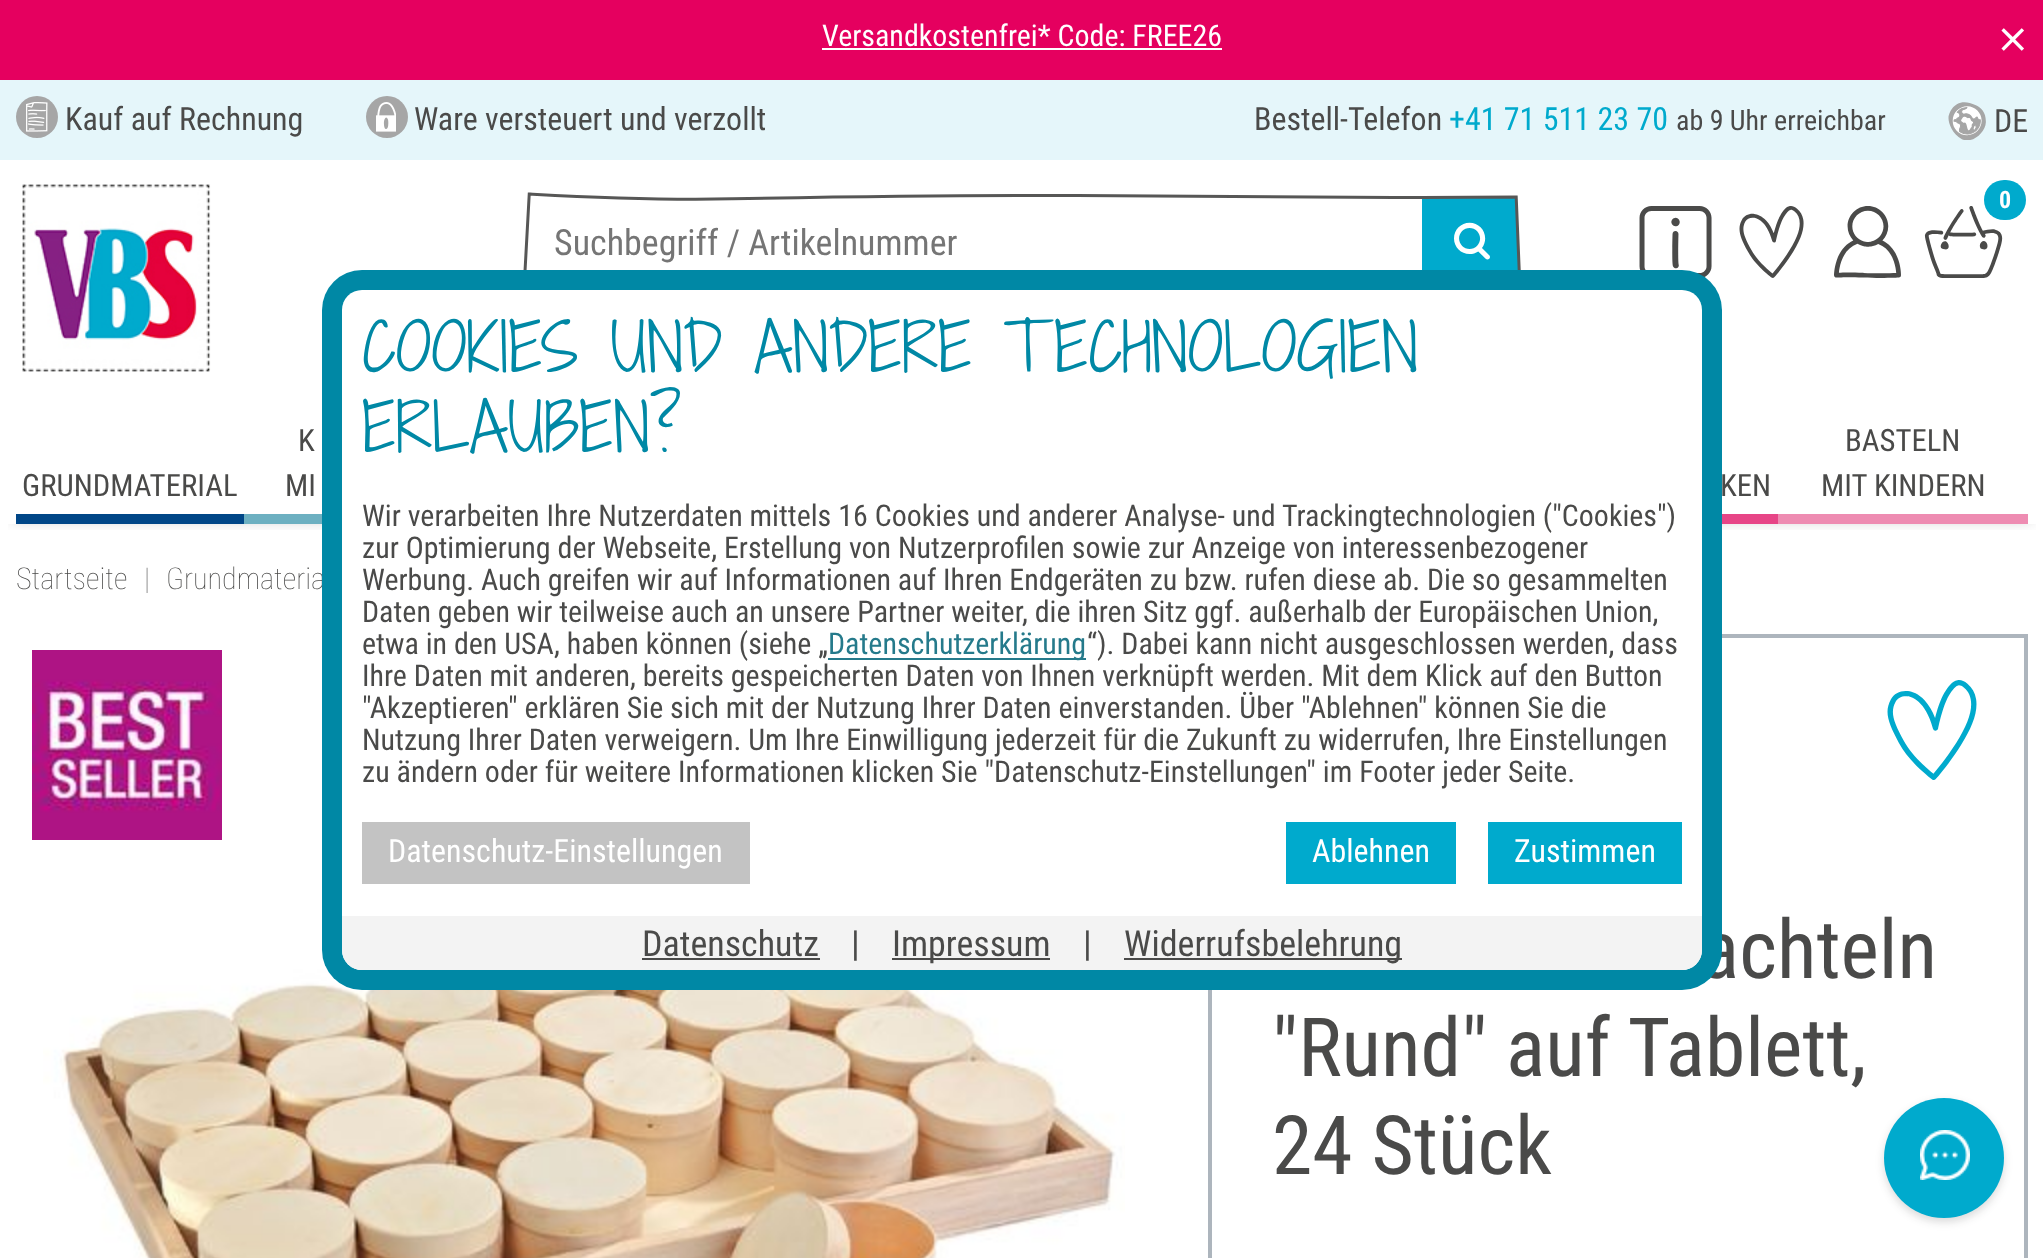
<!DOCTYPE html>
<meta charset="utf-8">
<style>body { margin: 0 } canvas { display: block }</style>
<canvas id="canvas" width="2043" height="1258"></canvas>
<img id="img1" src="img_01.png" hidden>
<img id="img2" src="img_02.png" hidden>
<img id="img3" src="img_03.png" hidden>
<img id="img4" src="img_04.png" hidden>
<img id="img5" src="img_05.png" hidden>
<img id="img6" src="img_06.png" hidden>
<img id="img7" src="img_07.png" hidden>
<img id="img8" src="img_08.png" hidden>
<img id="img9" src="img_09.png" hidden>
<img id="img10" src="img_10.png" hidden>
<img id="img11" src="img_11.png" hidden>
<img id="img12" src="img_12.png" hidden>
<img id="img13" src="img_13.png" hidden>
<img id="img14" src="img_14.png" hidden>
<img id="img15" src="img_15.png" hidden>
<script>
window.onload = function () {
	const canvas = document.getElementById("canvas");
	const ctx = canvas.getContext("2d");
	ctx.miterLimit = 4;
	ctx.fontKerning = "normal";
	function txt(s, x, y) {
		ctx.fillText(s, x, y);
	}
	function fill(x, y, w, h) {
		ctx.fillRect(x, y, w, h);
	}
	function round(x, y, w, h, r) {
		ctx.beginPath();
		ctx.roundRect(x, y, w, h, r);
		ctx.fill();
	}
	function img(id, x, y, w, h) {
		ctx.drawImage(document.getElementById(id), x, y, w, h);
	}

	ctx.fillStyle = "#FFFFFF";
	fill(0, 0, 2043, 1258);
	ctx.fillStyle = "#E5005F";
	fill(0, 0, 2043, 80);
	ctx.fillStyle = "#FFFFFF";
	fill(822, 48, 400, 2);
	ctx.save();
	ctx.beginPath();
	ctx.rect(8, 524, 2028, 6);
	ctx.clip();
	ctx.fillStyle = "rgba(0, 0, 0, 0.3)";
	ctx.filter = "blur(8px)";
	ctx.beginPath();
	ctx.rect(12, 100, 2020, 418);
	ctx.fill();
	ctx.filter = "none";
	ctx.restore();
	ctx.fillStyle = "#E5F6FA";
	fill(0, 80, 2043, 80);
	ctx.fillStyle = "#A6A6A6";
	ctx.beginPath();
	ctx.arc(37, 117, 21, 0, Math.PI * 2);
	ctx.fill();
	img("img1", 26, 102, 22, 30);
	ctx.beginPath();
	ctx.arc(387, 117, 21, 0, Math.PI * 2);
	ctx.fill();
	img("img2", 376, 102, 20, 30);
	img("img3", 1948, 102, 38, 38);
	img("img4", 22, 184, 189, 188);
	img("img5", 1924, 206, 79, 72);
	ctx.fillStyle = "#00AACD";
	round(1984, 180, 42, 40, 20);
	img("img6", 1639, 206, 73, 72);
	img("img7", 1739, 206, 65, 72);
	img("img8", 1834, 206, 67, 72);
	img("img9", 523, 192, 899, 78);
	img("img10", 1422, 195, 99, 75);
	img("img11", 1454, 222, 36, 38);
	ctx.fillStyle = "#004687";
	fill(16, 514, 228, 10);
	ctx.fillStyle = "#6DB0C1";
	fill(244, 514, 78, 10);
	ctx.fillStyle = "#E74587";
	fill(1722, 514, 56, 10);
	ctx.fillStyle = "#EE8CB2";
	fill(1778, 514, 250, 10);
	img("img12", 32, 650, 190, 190);
	img("img13", 43, 905, 1082, 353);
	ctx.strokeStyle = "#ADB5BD";
	ctx.lineWidth = 4;
	ctx.strokeRect(1210, 636, 816, 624);
	img("img14", 1887, 680, 90, 100);
	ctx.fillStyle = "rgba(22, 22, 22, 0.16)";
	ctx.filter = "blur(4px)";
	ctx.beginPath();
	ctx.roundRect(1884, 1102, 120, 120, 60);
	ctx.fill();
	ctx.filter = "none";
	ctx.fillStyle = "#00AACD";
	ctx.beginPath();
	ctx.arc(1944, 1158, 60, 0, Math.PI * 2);
	ctx.fill();
	img("img15", 1920, 1130, 50, 50);
	ctx.font = "30px Roboto Condensed";
	ctx.fillStyle = "#FFFFFF";
	txt("Versandkostenfrei* Code: FREE26", 822, 46);
	ctx.font = "40px DejaVu Sans";
	txt("⨯", 1996, 52);
	ctx.font = "32px Roboto Condensed";
	ctx.fillStyle = "#4A4A49";
	txt("Kauf auf Rechnung", 65, 130);
	txt("Ware versteuert und verzollt", 414, 130);
	txt("Bestell-Telefon", 1254, 130);
	ctx.fillStyle = "#00AACD";
	txt("+41 71 511 23 70", 1449, 130);
	ctx.font = "28px Roboto Condensed";
	ctx.fillStyle = "#4A4A49";
	txt("ab 9 Uhr erreichbar", 1676, 130);
	ctx.font = "32px Roboto Condensed";
	txt("DE", 1994, 132);
	ctx.font = "bold 24px Roboto Condensed";
	ctx.fillStyle = "#FFFFFF";
	txt("0", 1999, 208);
	ctx.font = "36px Roboto Condensed";
	ctx.fillStyle = "#757575";
	txt("Suchbegriff / Artikelnummer", 554, 255);
	ctx.font = "30.75px Roboto Condensed";
	ctx.fillStyle = "#4A4A49";
	txt("GRUNDMATERIAL", 22, 496);
	txt("K", 298, 451);
	txt("MI", 285, 496);
	txt("KEN", 1720, 496);
	txt("BASTELN", 1845, 451);
	txt("MIT KINDERN", 1821, 496);
	ctx.font = "100 30px Roboto Condensed";
	txt("Startseite", 16, 589);
	ctx.fillStyle = "#878787";
	txt("|", 144, 589);
	ctx.fillStyle = "#4A4A49";
	txt("Grundmateria", 166, 589);
	ctx.font = "81.75px Roboto Condensed";
	txt("achteln", 1700, 978);
	ctx.fillStyle = "#0088A5";
	round(322, 270, 1400, 720, 40);
	ctx.fillStyle = "#FFFFFF";
	round(342, 290, 1360, 680, 20);
	ctx.fillStyle = "#F3F3F3";
	ctx.beginPath();
	ctx.roundRect(342, 916, 1360, 54, [0, 0, 20, 20]);
	ctx.fill();
	ctx.fillStyle = "#4A4A49";
	fill(1124, 958, 278, 2);
	ctx.font = "36px Roboto Condensed";
	txt("Widerrufsbelehrung", 1124, 956);
	txt("|", 1083, 956);
	fill(892, 958, 158, 2);
	txt("Impressum", 892, 956);
	txt("|", 851, 956);
	txt("Datenschutz", 642, 956);
	fill(642, 958, 178, 2);
	ctx.fillStyle = "#00AACD";
	fill(1488, 822, 194, 62);
	ctx.font = "32px Roboto Condensed";
	ctx.fillStyle = "#FFFFFF";
	txt("Zustimmen", 1514, 862);
	ctx.fillStyle = "#00AACD";
	fill(1286, 822, 170, 62);
	ctx.fillStyle = "#FFFFFF";
	txt("Ablehnen", 1312, 862);
	ctx.fillStyle = "#C3C3C3";
	fill(362, 822, 388, 62);
	ctx.fillStyle = "#FFFFFF";
	txt("Datenschutz-Einstellungen", 388, 862);
	ctx.font = "30px Roboto Condensed";
	ctx.fillStyle = "#4A4A49";
	txt("zu ändern oder für weitere Informationen klicken Sie \"Datenschutz-Einstellungen\" im Footer jeder Seite.", 362, 782);
	txt("Nutzung Ihrer Daten verweigern. Um Ihre Einwilligung jederzeit für die Zukunft zu widerrufen, Ihre Einstellungen", 362, 750);
	txt("\"Akzeptieren\" erklären Sie sich mit der Nutzung Ihrer Daten einverstanden. Über \"Ablehnen\" können Sie die", 362, 718);
	txt("Ihre Daten mit anderen, bereits gespeicherten Daten von Ihnen verknüpft werden. Mit dem Klick auf den Button", 362, 686);
	txt("“). Dabei kann nicht ausgeschlossen werden, dass", 1087, 654);
	ctx.fillStyle = "#257A8B";
	fill(828, 658, 258, 2);
	txt("Datenschutzerklärung", 828, 654);
	ctx.fillStyle = "#4A4A49";
	txt("etwa in den USA, haben können (siehe „", 362, 654);
	txt("Daten geben wir teilweise auch an unsere Partner weiter, die ihren Sitz ggf. außerhalb der Europäischen Union,", 362, 622);
	txt("Werbung. Auch greifen wir auf Informationen auf Ihren Endgeräten zu bzw. rufen diese ab. Die so gesammelten", 362, 590);
	txt("zur Optimierung der Webseite, Erstellung von Nutzerprofilen sowie zur Anzeige von interessenbezogener", 362, 558);
	txt("Wir verarbeiten Ihre Nutzerdaten mittels 16 Cookies und anderer Analyse- und Trackingtechnologien (\"Cookies\")", 362, 526);
	ctx.font = "300 64px Shadows Into Light Two";
	ctx.fillStyle = "#0088A5";
	txt("ERLAUBEN?", 362, 452);
	txt("COOKIES UND ANDERE TECHNOLOGIEN", 362, 372);
	ctx.font = "81.75px Roboto Condensed";
	ctx.fillStyle = "#4A4A49";
	txt("\"Rund\" auf Tablett,", 1272, 1076);
	txt("24 Stück", 1272, 1174);
};
</script>
